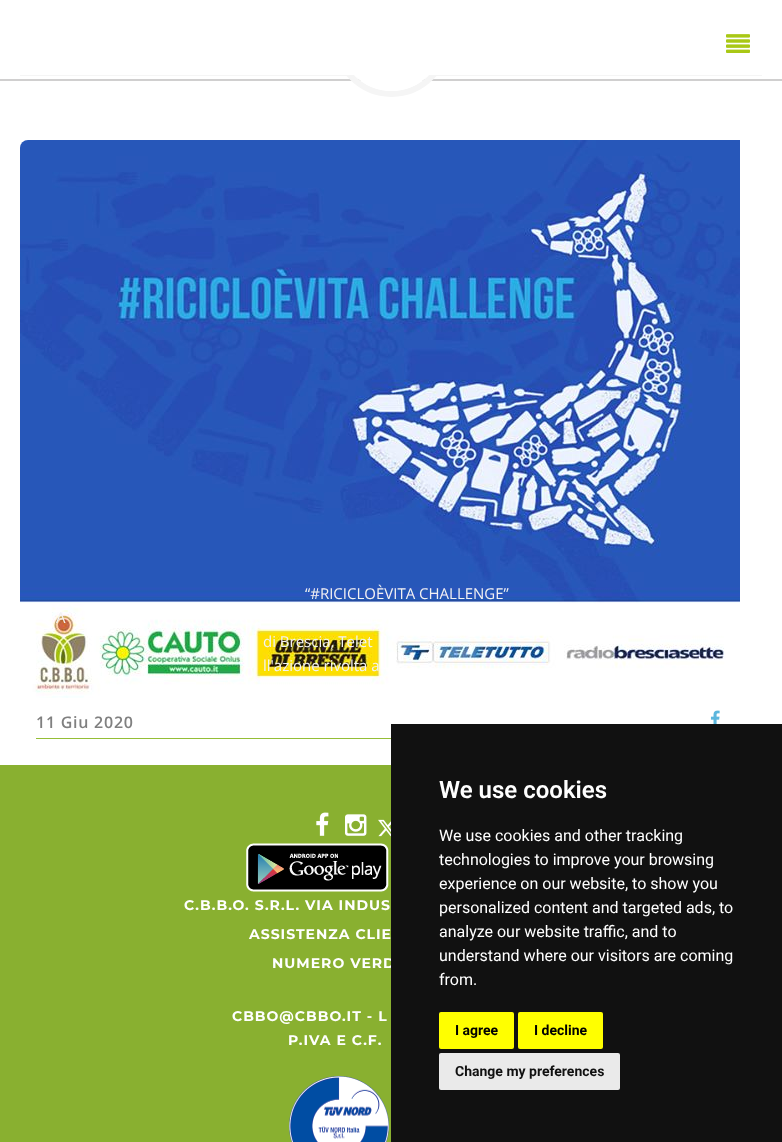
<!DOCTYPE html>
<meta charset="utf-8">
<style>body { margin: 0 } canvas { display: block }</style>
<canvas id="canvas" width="782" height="1142"></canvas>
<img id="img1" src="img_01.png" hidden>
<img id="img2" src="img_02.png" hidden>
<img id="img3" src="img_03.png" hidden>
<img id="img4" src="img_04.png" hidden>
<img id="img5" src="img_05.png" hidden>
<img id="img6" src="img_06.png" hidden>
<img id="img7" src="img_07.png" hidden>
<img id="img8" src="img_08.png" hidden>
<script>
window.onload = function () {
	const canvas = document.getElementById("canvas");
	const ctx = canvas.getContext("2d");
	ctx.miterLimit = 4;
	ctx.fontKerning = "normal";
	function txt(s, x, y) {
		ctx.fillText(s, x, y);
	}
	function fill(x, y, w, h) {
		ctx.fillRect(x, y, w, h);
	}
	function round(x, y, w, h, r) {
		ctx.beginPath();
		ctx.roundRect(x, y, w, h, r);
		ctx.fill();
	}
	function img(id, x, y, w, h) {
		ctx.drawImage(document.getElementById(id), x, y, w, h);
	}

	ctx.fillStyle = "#FFFFFF";
	fill(0, 0, 782, 1142);
	ctx.strokeStyle = "#D0CFCF";
	ctx.lineWidth = 2;
	ctx.strokeRect(-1, -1, 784, 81);
	ctx.fillStyle = "#F5F5F5";
	fill(20, 75, 742, 1);
	ctx.beginPath();
	ctx.arc(391.5, 38.5, 55.5, 0, Math.PI * 2);
	ctx.strokeStyle = "#F5F5F5";
	ctx.lineWidth = 6;
	ctx.stroke();
	ctx.fillStyle = "#FFFFFF";
	ctx.beginPath();
	ctx.arc(391.5, 38.5, 52.5, 0, Math.PI * 2);
	ctx.fill();
	fill(333, 0, 117, 75);
	img("img1", 726, 34, 24, 19);
	img("img2", 20, 140, 720, 558);
	ctx.fillStyle = "#95BE36";
	fill(36, 738, 355, 1);
	img("img3", 710, 710, 10, 14);
	ctx.fillStyle = "#89B030";
	fill(0, 765, 391, 377);
	img("img4", 316, 812, 13, 24);
	img("img5", 345, 814, 22, 22);
	img("img6", 378, 819, 13, 18);
	img("img7", 246, 843, 143, 49);
	img("img8", 289, 1076, 100, 66);
	ctx.font = "15px Open Sans";
	ctx.fillStyle = "#F2F2F2";
	txt("“#RICICLOÈVITA CHALLENGE”", 305, 599);
	txt("A", 56, 623);
	txt("di Brescia, Telet", 263, 647);
	txt("ll'azione rivolta a", 263, 671);
	ctx.letterSpacing = "0.75px";
	ctx.font = "600 16px Open Sans";
	ctx.fillStyle = "#808080";
	txt("11 Giu 2020", 36, 728);
	ctx.letterSpacing = "1px";
	ctx.font = "bold 14px Montserrat";
	ctx.fillStyle = "#FFFFFF";
	txt("C.B.B.O. S.R.L. VIA INDUS", 184, 910);
	txt("ASSISTENZA CLIE", 249, 939);
	txt("NUMERO VERD", 272, 968);
	txt("CBBO@CBBO.IT - L", 232, 1021);
	txt("P.IVA E C.F.", 288, 1045);
	ctx.fillStyle = "#111111";
	fill(391, 724, 391, 418);
	ctx.letterSpacing = "0px";
	ctx.font = "600 24px Roboto";
	ctx.fillStyle = "#FFFFFF";
	txt("We use cookies", 439, 798);
	ctx.font = "16px Roboto";
	txt("We use cookies and other tracking", 439, 841);
	txt("technologies to improve your browsing", 439, 865);
	txt("experience on our website, to show you", 439, 889);
	txt("personalized content and targeted ads, to", 439, 913);
	txt("analyze our website traffic, and to", 439, 937);
	txt("understand where our visitors are coming", 439, 961);
	txt("from.", 439, 985);
	ctx.fillStyle = "#FFFF00";
	round(439, 1012, 75, 37, 2);
	ctx.font = "bold 14px Roboto";
	ctx.fillStyle = "#000000";
	txt("I agree", 455, 1035);
	ctx.fillStyle = "#FFFF00";
	round(518, 1012, 85, 37, 2);
	ctx.fillStyle = "#000000";
	txt("I decline", 534, 1035);
	ctx.fillStyle = "#EAEAEA";
	round(439, 1053, 181, 37, 2);
	ctx.fillStyle = "#111111";
	txt("Change my preferences", 455, 1076);
};
</script>
